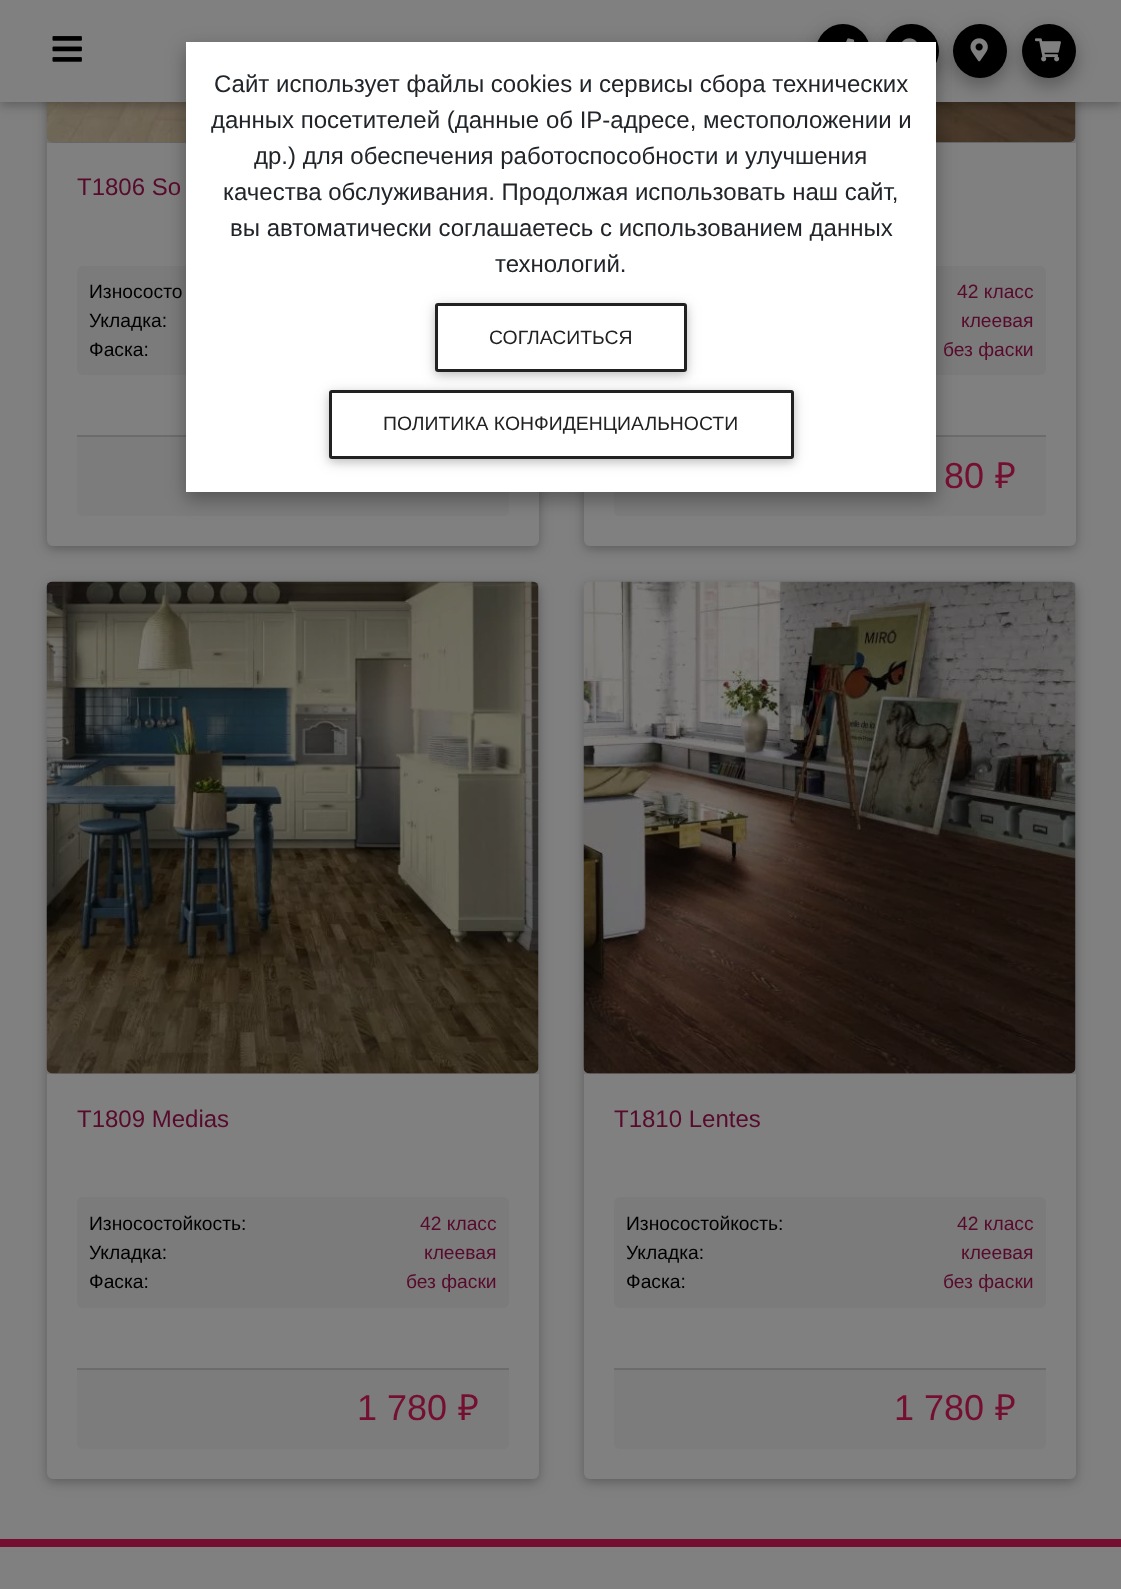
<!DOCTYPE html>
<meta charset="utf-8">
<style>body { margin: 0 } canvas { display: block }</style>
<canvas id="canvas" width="1121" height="1589"></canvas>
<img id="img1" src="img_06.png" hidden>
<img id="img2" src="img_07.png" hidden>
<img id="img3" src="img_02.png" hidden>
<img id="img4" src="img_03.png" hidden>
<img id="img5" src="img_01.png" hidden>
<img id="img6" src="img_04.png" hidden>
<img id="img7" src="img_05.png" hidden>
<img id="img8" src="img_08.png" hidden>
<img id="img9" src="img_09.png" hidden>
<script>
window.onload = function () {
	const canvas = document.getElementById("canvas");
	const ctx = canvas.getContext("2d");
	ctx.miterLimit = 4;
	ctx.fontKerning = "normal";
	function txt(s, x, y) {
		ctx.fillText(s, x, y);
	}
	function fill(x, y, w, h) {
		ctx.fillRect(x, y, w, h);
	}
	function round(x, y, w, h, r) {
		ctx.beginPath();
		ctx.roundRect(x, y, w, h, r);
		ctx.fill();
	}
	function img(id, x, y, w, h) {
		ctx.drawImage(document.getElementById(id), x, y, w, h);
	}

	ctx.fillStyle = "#808080";
	fill(0, 0, 1121, 1589);
	ctx.fillStyle = "rgba(0, 0, 0, 0.12)";
	ctx.filter = "blur(7.5px)";
	ctx.beginPath();
	ctx.roundRect(47, -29, 492, 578, 6);
	ctx.fill();
	ctx.filter = "none";
	ctx.fillStyle = "rgba(0, 0, 0, 0.16)";
	ctx.filter = "blur(4px)";
	ctx.beginPath();
	ctx.roundRect(47, -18, 492, 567, 6);
	ctx.fill();
	ctx.filter = "none";
	ctx.fillStyle = "#808080";
	round(47, -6, 492, 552, 6);
	ctx.save();
	ctx.beginPath();
	ctx.rect(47, 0, 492, 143);
	ctx.clip();
	ctx.fillStyle = "rgba(0, 0, 0, 0.12)";
	ctx.filter = "blur(7.5px)";
	ctx.beginPath();
	ctx.roundRect(47, -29, 492, 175, 6);
	ctx.fill();
	ctx.filter = "none";
	ctx.fillStyle = "rgba(0, 0, 0, 0.16)";
	ctx.filter = "blur(4px)";
	ctx.beginPath();
	ctx.roundRect(47, -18, 492, 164, 6);
	ctx.fill();
	ctx.filter = "none";
	ctx.restore();
	img("img1", 46, 102, 140, 40);
	ctx.fillStyle = "rgba(0, 0, 0, 0.12)";
	ctx.filter = "blur(7.5px)";
	ctx.beginPath();
	ctx.roundRect(584, -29, 492, 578, 6);
	ctx.fill();
	ctx.filter = "none";
	ctx.fillStyle = "rgba(0, 0, 0, 0.16)";
	ctx.filter = "blur(4px)";
	ctx.beginPath();
	ctx.roundRect(584, -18, 492, 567, 6);
	ctx.fill();
	ctx.filter = "none";
	ctx.fillStyle = "#808080";
	round(584, -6, 492, 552, 6);
	ctx.save();
	ctx.beginPath();
	ctx.rect(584, 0, 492, 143);
	ctx.clip();
	ctx.fillStyle = "rgba(0, 0, 0, 0.12)";
	ctx.filter = "blur(7.5px)";
	ctx.beginPath();
	ctx.roundRect(584, -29, 492, 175, 6);
	ctx.fill();
	ctx.filter = "none";
	ctx.fillStyle = "rgba(0, 0, 0, 0.16)";
	ctx.filter = "blur(4px)";
	ctx.beginPath();
	ctx.roundRect(584, -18, 492, 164, 6);
	ctx.fill();
	ctx.filter = "none";
	ctx.restore();
	img("img2", 936, 102, 140, 40);
	ctx.fillStyle = "rgba(0, 0, 0, 0.12)";
	ctx.filter = "blur(7.5px)";
	ctx.beginPath();
	ctx.rect(0, 3, 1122, 102);
	ctx.fill();
	ctx.filter = "none";
	ctx.fillStyle = "rgba(0, 0, 0, 0.16)";
	ctx.filter = "blur(4px)";
	ctx.beginPath();
	ctx.rect(0, 3, 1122, 102);
	ctx.fill();
	ctx.filter = "none";
	ctx.fillStyle = "#808080";
	fill(0, 0, 1121, 102);
	ctx.fillStyle = "rgba(0, 0, 0, 0.15)";
	ctx.filter = "blur(11px)";
	ctx.beginPath();
	ctx.roundRect(816, 30, 54, 54, 27);
	ctx.fill();
	ctx.filter = "none";
	ctx.fillStyle = "rgba(0, 0, 0, 0.18)";
	ctx.filter = "blur(8px)";
	ctx.beginPath();
	ctx.roundRect(816, 32, 54, 54, 27);
	ctx.fill();
	ctx.filter = "none";
	ctx.fillStyle = "#000000";
	ctx.beginPath();
	ctx.arc(843, 51, 27, 0, Math.PI * 2);
	ctx.fill();
	img("img3", 846, 38, 9, 4);
	ctx.fillStyle = "rgba(0, 0, 0, 0.15)";
	ctx.filter = "blur(11px)";
	ctx.beginPath();
	ctx.roundRect(884, 30, 55, 54, 27);
	ctx.fill();
	ctx.filter = "none";
	ctx.fillStyle = "rgba(0, 0, 0, 0.18)";
	ctx.filter = "blur(8px)";
	ctx.beginPath();
	ctx.roundRect(884, 32, 55, 54, 27);
	ctx.fill();
	ctx.filter = "none";
	ctx.fillStyle = "#000000";
	round(884, 24, 55, 54, 27);
	img("img4", 902, 38, 15, 4);
	ctx.fillStyle = "rgba(0, 0, 0, 0.15)";
	ctx.filter = "blur(11px)";
	ctx.beginPath();
	ctx.roundRect(953, 30, 54, 54, 27);
	ctx.fill();
	ctx.filter = "none";
	ctx.fillStyle = "rgba(0, 0, 0, 0.18)";
	ctx.filter = "blur(8px)";
	ctx.beginPath();
	ctx.roundRect(953, 32, 54, 54, 27);
	ctx.fill();
	ctx.filter = "none";
	ctx.fillStyle = "#000000";
	ctx.beginPath();
	ctx.arc(980, 51, 27, 0, Math.PI * 2);
	ctx.fill();
	ctx.fillStyle = "#7B7B7B";
	round(77, 266, 432, 109, 6);
	ctx.fillStyle = "#7C7C7C";
	ctx.beginPath();
	ctx.roundRect(77, 435, 432, 81, [0, 0, 5, 5]);
	ctx.fill();
	ctx.fillStyle = "#6C6C6C";
	fill(77, 435, 109, 2);
	ctx.fillStyle = "#7B7B7B";
	round(614, 266, 432, 109, 6);
	ctx.fillStyle = "#7C7C7C";
	ctx.beginPath();
	ctx.roundRect(614, 435, 432, 81, [0, 0, 5, 5]);
	ctx.fill();
	ctx.fillStyle = "#6C6C6C";
	fill(936, 435, 110, 2);
	ctx.fillStyle = "rgba(0, 0, 0, 0.15)";
	ctx.filter = "blur(11px)";
	ctx.beginPath();
	ctx.rect(186, 48, 750, 450);
	ctx.fill();
	ctx.filter = "none";
	ctx.fillStyle = "rgba(0, 0, 0, 0.18)";
	ctx.filter = "blur(8px)";
	ctx.beginPath();
	ctx.rect(186, 50, 750, 450);
	ctx.fill();
	ctx.filter = "none";
	ctx.fillStyle = "#FFFFFF";
	fill(186, 42, 750, 450);
	ctx.save();
	ctx.beginPath();
	ctx.moveTo(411, 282);
	ctx.lineTo(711, 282);
	ctx.lineTo(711, 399);
	ctx.lineTo(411, 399);
	ctx.closePath();
	ctx.moveTo(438, 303);
	ctx.lineTo(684, 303);
	ctx.bezierCurveTo(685.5, 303, 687, 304.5, 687, 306);
	ctx.lineTo(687, 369);
	ctx.bezierCurveTo(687, 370.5, 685.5, 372, 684, 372);
	ctx.lineTo(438, 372);
	ctx.bezierCurveTo(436.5, 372, 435, 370.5, 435, 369);
	ctx.lineTo(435, 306);
	ctx.bezierCurveTo(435, 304.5, 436.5, 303, 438, 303);
	ctx.closePath();
	ctx.clip("evenodd");
	ctx.fillStyle = "rgba(0, 0, 0, 0.12)";
	ctx.filter = "blur(7.5px)";
	ctx.beginPath();
	ctx.roundRect(435, 306, 252, 69, 3);
	ctx.fill();
	ctx.filter = "none";
	ctx.restore();
	ctx.save();
	ctx.beginPath();
	ctx.moveTo(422, 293);
	ctx.lineTo(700, 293);
	ctx.lineTo(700, 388);
	ctx.lineTo(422, 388);
	ctx.closePath();
	ctx.moveTo(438, 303);
	ctx.lineTo(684, 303);
	ctx.bezierCurveTo(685.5, 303, 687, 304.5, 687, 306);
	ctx.lineTo(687, 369);
	ctx.bezierCurveTo(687, 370.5, 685.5, 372, 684, 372);
	ctx.lineTo(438, 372);
	ctx.bezierCurveTo(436.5, 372, 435, 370.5, 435, 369);
	ctx.lineTo(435, 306);
	ctx.bezierCurveTo(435, 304.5, 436.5, 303, 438, 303);
	ctx.closePath();
	ctx.clip("evenodd");
	ctx.fillStyle = "rgba(0, 0, 0, 0.16)";
	ctx.filter = "blur(4px)";
	ctx.beginPath();
	ctx.roundRect(435, 306, 252, 69, 3);
	ctx.fill();
	ctx.filter = "none";
	ctx.restore();
	ctx.beginPath();
	ctx.roundRect(436.5, 304.5, 249, 66, 1.5);
	ctx.strokeStyle = "#212121";
	ctx.lineWidth = 3;
	ctx.stroke();
	ctx.save();
	ctx.beginPath();
	ctx.moveTo(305, 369);
	ctx.lineTo(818, 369);
	ctx.lineTo(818, 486);
	ctx.lineTo(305, 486);
	ctx.closePath();
	ctx.moveTo(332, 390);
	ctx.lineTo(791, 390);
	ctx.bezierCurveTo(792.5, 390, 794, 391.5, 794, 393);
	ctx.lineTo(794, 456);
	ctx.bezierCurveTo(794, 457.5, 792.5, 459, 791, 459);
	ctx.lineTo(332, 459);
	ctx.bezierCurveTo(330.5, 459, 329, 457.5, 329, 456);
	ctx.lineTo(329, 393);
	ctx.bezierCurveTo(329, 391.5, 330.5, 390, 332, 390);
	ctx.closePath();
	ctx.clip("evenodd");
	ctx.fillStyle = "rgba(0, 0, 0, 0.12)";
	ctx.filter = "blur(7.5px)";
	ctx.beginPath();
	ctx.roundRect(329, 393, 465, 69, 3);
	ctx.fill();
	ctx.filter = "none";
	ctx.restore();
	ctx.save();
	ctx.beginPath();
	ctx.moveTo(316, 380);
	ctx.lineTo(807, 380);
	ctx.lineTo(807, 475);
	ctx.lineTo(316, 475);
	ctx.closePath();
	ctx.moveTo(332, 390);
	ctx.lineTo(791, 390);
	ctx.bezierCurveTo(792.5, 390, 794, 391.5, 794, 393);
	ctx.lineTo(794, 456);
	ctx.bezierCurveTo(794, 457.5, 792.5, 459, 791, 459);
	ctx.lineTo(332, 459);
	ctx.bezierCurveTo(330.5, 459, 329, 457.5, 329, 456);
	ctx.lineTo(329, 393);
	ctx.bezierCurveTo(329, 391.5, 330.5, 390, 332, 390);
	ctx.closePath();
	ctx.clip("evenodd");
	ctx.fillStyle = "rgba(0, 0, 0, 0.16)";
	ctx.filter = "blur(4px)";
	ctx.beginPath();
	ctx.roundRect(329, 393, 465, 69, 3);
	ctx.fill();
	ctx.filter = "none";
	ctx.restore();
	ctx.beginPath();
	ctx.roundRect(330.5, 391.5, 462, 66, 1.5);
	ctx.stroke();
	img("img5", 52, 36, 30, 26);
	img("img6", 970, 38, 18, 24);
	ctx.fillStyle = "rgba(0, 0, 0, 0.15)";
	ctx.filter = "blur(11px)";
	ctx.beginPath();
	ctx.roundRect(1022, 30, 54, 54, 27);
	ctx.fill();
	ctx.filter = "none";
	ctx.fillStyle = "rgba(0, 0, 0, 0.18)";
	ctx.filter = "blur(8px)";
	ctx.beginPath();
	ctx.roundRect(1022, 32, 54, 54, 27);
	ctx.fill();
	ctx.filter = "none";
	ctx.fillStyle = "#000000";
	ctx.beginPath();
	ctx.arc(1049, 51, 27, 0, Math.PI * 2);
	ctx.fill();
	img("img7", 1035, 38, 26, 24);
	ctx.fillStyle = "rgba(0, 0, 0, 0.12)";
	ctx.filter = "blur(7.5px)";
	ctx.beginPath();
	ctx.roundRect(47, 585, 492, 897, 6);
	ctx.fill();
	ctx.filter = "none";
	ctx.fillStyle = "rgba(0, 0, 0, 0.16)";
	ctx.filter = "blur(4px)";
	ctx.beginPath();
	ctx.roundRect(47, 585, 492, 897, 6);
	ctx.fill();
	ctx.filter = "none";
	ctx.fillStyle = "#808080";
	round(47, 582, 492, 897, 6);
	ctx.save();
	ctx.beginPath();
	ctx.rect(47, 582, 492, 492);
	ctx.clip();
	ctx.fillStyle = "rgba(0, 0, 0, 0.12)";
	ctx.filter = "blur(7.5px)";
	ctx.beginPath();
	ctx.roundRect(47, 585, 492, 492, 6);
	ctx.fill();
	ctx.filter = "none";
	ctx.fillStyle = "rgba(0, 0, 0, 0.16)";
	ctx.filter = "blur(4px)";
	ctx.beginPath();
	ctx.roundRect(47, 585, 492, 492, 6);
	ctx.fill();
	ctx.filter = "none";
	ctx.restore();
	img("img8", 46, 581, 493, 493);
	ctx.fillStyle = "#7B7B7B";
	round(77, 1197, 432, 111, 6);
	ctx.fillStyle = "#7C7C7C";
	ctx.beginPath();
	ctx.roundRect(77, 1368, 432, 81, [0, 0, 5, 5]);
	ctx.fill();
	ctx.fillStyle = "#6C6C6C";
	fill(77, 1368, 432, 2);
	ctx.fillStyle = "rgba(0, 0, 0, 0.12)";
	ctx.filter = "blur(7.5px)";
	ctx.beginPath();
	ctx.roundRect(584, 585, 492, 897, 6);
	ctx.fill();
	ctx.filter = "none";
	ctx.fillStyle = "rgba(0, 0, 0, 0.16)";
	ctx.filter = "blur(4px)";
	ctx.beginPath();
	ctx.roundRect(584, 585, 492, 897, 6);
	ctx.fill();
	ctx.filter = "none";
	ctx.fillStyle = "#808080";
	round(584, 582, 492, 897, 6);
	ctx.save();
	ctx.beginPath();
	ctx.rect(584, 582, 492, 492);
	ctx.clip();
	ctx.fillStyle = "rgba(0, 0, 0, 0.12)";
	ctx.filter = "blur(7.5px)";
	ctx.beginPath();
	ctx.roundRect(584, 585, 492, 492, 6);
	ctx.fill();
	ctx.filter = "none";
	ctx.fillStyle = "rgba(0, 0, 0, 0.16)";
	ctx.filter = "blur(4px)";
	ctx.beginPath();
	ctx.roundRect(584, 585, 492, 492, 6);
	ctx.fill();
	ctx.filter = "none";
	ctx.restore();
	img("img9", 583, 581, 493, 493);
	ctx.fillStyle = "#7B7B7B";
	round(614, 1197, 432, 111, 6);
	ctx.fillStyle = "#7C7C7C";
	ctx.beginPath();
	ctx.roundRect(614, 1368, 432, 81, [0, 0, 5, 5]);
	ctx.fill();
	ctx.fillStyle = "#6C6C6C";
	fill(614, 1368, 432, 2);
	ctx.fillStyle = "#750F32";
	fill(0, 1539, 1121, 8);
	ctx.font = "24px Liberation Sans";
	ctx.fillStyle = "#212529";
	txt("Сайт использует файлы cookies и сервисы сбора технических", 214, 92);
	txt("данных посетителей (данные об IP-адресе, местоположении и", 211, 128);
	txt("др.) для обеспечения работоспособности и улучшения", 254, 164);
	txt("качества обслуживания. Продолжая использовать наш сайт,", 223, 200);
	txt("вы автоматически соглашаетесь с использованием данных", 230, 236);
	txt("технологий.", 495, 272);
	ctx.font = "19.4px Liberation Sans";
	ctx.fillStyle = "#212121";
	txt("СОГЛАСИТЬСЯ", 489, 344);
	txt("ПОЛИТИКА КОНФИДЕНЦИАЛЬНОСТИ", 383, 430);
	ctx.font = "24px Liberation Sans";
	ctx.fillStyle = "#570A2C";
	txt("T1806 So", 77, 195);
	ctx.font = "19.25px Liberation Sans";
	ctx.fillStyle = "#000000";
	txt("Износосто", 89, 298);
	txt("Укладка:", 89, 327);
	txt("Фаска:", 89, 356);
	ctx.fillStyle = "#570A2C";
	txt("42 класс", 957, 298);
	txt("клеевая", 961, 327);
	txt("без фаски", 943, 356);
	ctx.font = "36px Liberation Sans";
	ctx.fillStyle = "#750F32";
	txt("80", 944, 488);
	ctx.font = "36px Noto Sans";
	txt("₽", 995, 488);
	ctx.font = "24px Liberation Sans";
	ctx.fillStyle = "#570A2C";
	txt("T1809 Medias", 77, 1127);
	ctx.font = "19.25px Liberation Sans";
	ctx.fillStyle = "#000000";
	txt("Износостойкость:", 89, 1230);
	ctx.fillStyle = "#570A2C";
	txt("42 класс", 420, 1230);
	ctx.fillStyle = "#000000";
	txt("Укладка:", 89, 1259);
	ctx.fillStyle = "#570A2C";
	txt("клеевая", 424, 1259);
	ctx.fillStyle = "#000000";
	txt("Фаска:", 89, 1288);
	ctx.fillStyle = "#570A2C";
	txt("без фаски", 406, 1288);
	ctx.font = "36px Liberation Sans";
	ctx.fillStyle = "#750F32";
	txt("1 780", 357, 1420);
	ctx.font = "36px Noto Sans";
	txt("₽", 458, 1420);
	ctx.font = "24px Liberation Sans";
	ctx.fillStyle = "#570A2C";
	txt("T1810 Lentes", 614, 1127);
	ctx.font = "19.25px Liberation Sans";
	ctx.fillStyle = "#000000";
	txt("Износостойкость:", 626, 1230);
	ctx.fillStyle = "#570A2C";
	txt("42 класс", 957, 1230);
	ctx.fillStyle = "#000000";
	txt("Укладка:", 626, 1259);
	ctx.fillStyle = "#570A2C";
	txt("клеевая", 961, 1259);
	ctx.fillStyle = "#000000";
	txt("Фаска:", 626, 1288);
	ctx.fillStyle = "#570A2C";
	txt("без фаски", 943, 1288);
	ctx.font = "36px Liberation Sans";
	ctx.fillStyle = "#750F32";
	txt("1 780", 894, 1420);
	ctx.font = "36px Noto Sans";
	txt("₽", 995, 1420);
};
</script>
